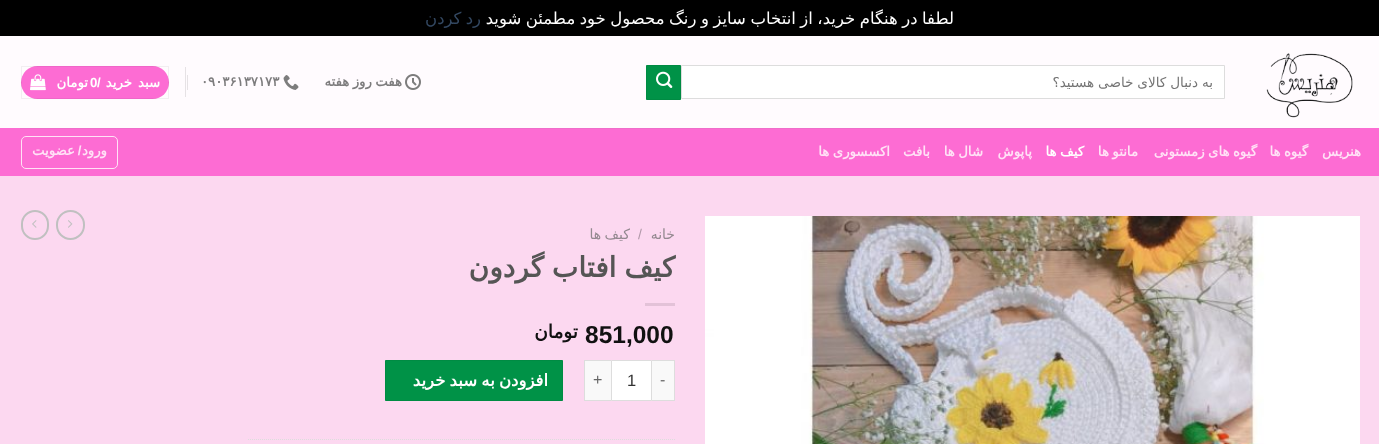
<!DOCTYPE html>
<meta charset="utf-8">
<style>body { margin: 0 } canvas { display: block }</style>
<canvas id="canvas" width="1379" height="444"></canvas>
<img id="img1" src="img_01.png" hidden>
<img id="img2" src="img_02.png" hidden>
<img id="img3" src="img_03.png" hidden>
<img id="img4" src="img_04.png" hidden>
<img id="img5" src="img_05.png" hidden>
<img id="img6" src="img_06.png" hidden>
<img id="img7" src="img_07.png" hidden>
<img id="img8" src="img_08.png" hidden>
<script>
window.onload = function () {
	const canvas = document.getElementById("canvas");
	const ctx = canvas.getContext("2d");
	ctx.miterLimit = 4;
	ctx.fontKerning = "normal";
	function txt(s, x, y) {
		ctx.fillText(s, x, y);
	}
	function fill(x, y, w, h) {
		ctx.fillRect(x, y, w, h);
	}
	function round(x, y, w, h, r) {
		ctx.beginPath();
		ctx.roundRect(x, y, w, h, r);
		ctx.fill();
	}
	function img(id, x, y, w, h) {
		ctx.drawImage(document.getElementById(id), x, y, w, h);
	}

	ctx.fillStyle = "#000000";
	fill(0, 0, 1379, 444);
	ctx.fillStyle = "#FCD8F0";
	fill(0, 176, 1379, 268);
	ctx.fillStyle = "#FFFBFE";
	fill(0, 36, 1379, 92);
	img("img1", 1266, 53, 87, 65);
	ctx.fillStyle = "#FFFFFF";
	ctx.beginPath();
	ctx.rect(681.5, 65.5, 543, 33);
	ctx.fill();
	ctx.strokeStyle = "#DDDDDD";
	ctx.stroke();
	ctx.fillStyle = "#009247";
	ctx.beginPath();
	ctx.rect(646.5, 65.5, 34, 34);
	ctx.fill();
	ctx.strokeStyle = "#008B43";
	ctx.stroke();
	img("img2", 656, 71, 17, 17);
	img("img3", 405, 74, 16, 16);
	img("img4", 283, 75, 16, 15);
	ctx.fillStyle = "#E6E2E5";
	fill(187, 75, 1, 15);
	fill(185, 67, 1, 30);
	ctx.fillStyle = "#FD6CD3";
	round(21, 66, 148, 33, 16.5);
	ctx.strokeStyle = "rgba(0, 0, 0, 0.05)";
	ctx.strokeRect(21.5, 66.5, 147, 32);
	img("img5", 30, 74, 16, 17);
	fill(0, 128, 1379, 48);
	ctx.fillStyle = "#F06DCA";
	fill(20, 128, 1340, 1);
	ctx.beginPath();
	ctx.roundRect(21.5, 136.5, 96, 32, 4.5);
	ctx.strokeStyle = "#FFE2F6";
	ctx.stroke();
	img("img6", 705, 216, 655, 228);
	ctx.fillStyle = "#E3C2D8";
	fill(645, 303, 30, 3);
	ctx.fillStyle = "#F9F9F9";
	fill(652, 361, 22, 39);
	ctx.fillStyle = "#DDDDDD";
	fill(652, 360, 23, 1);
	fill(674, 360, 1, 41);
	fill(652, 400, 23, 1);
	ctx.fillStyle = "#FFFFFF";
	ctx.beginPath();
	ctx.rect(611.5, 360.5, 40, 40);
	ctx.fill();
	ctx.strokeStyle = "#DDDDDD";
	ctx.stroke();
	ctx.fillStyle = "#F9F9F9";
	fill(585, 361, 26, 39);
	ctx.fillStyle = "#DDDDDD";
	fill(584, 360, 27, 1);
	fill(584, 400, 27, 1);
	fill(584, 360, 1, 41);
	ctx.fillStyle = "#009247";
	ctx.beginPath();
	ctx.rect(385.5, 360.5, 177, 40);
	ctx.fill();
	ctx.strokeStyle = "#008B43";
	ctx.stroke();
	ctx.beginPath();
	ctx.moveTo(248, 439.5);
	ctx.lineTo(675, 439.5);
	ctx.strokeStyle = "#DDDDDD";
	ctx.setLineDash([1, 1]);
	ctx.stroke();
	ctx.beginPath();
	ctx.roundRect(57, 211, 27, 28, 13.5);
	ctx.strokeStyle = "#C0C0C0";
	ctx.lineWidth = 2;
	ctx.setLineDash([]);
	ctx.stroke();
	img("img7", 68, 220, 5, 8);
	ctx.beginPath();
	ctx.roundRect(22, 211, 26, 28, 13);
	ctx.stroke();
	img("img8", 32, 220, 5, 8);
	ctx.wordSpacing = "-0.75px";
	ctx.direction = "rtl";
	ctx.font = "16.5px DejaVu Sans";
	ctx.fillStyle = "#FFFFFF";
	txt("لطفا در هنگام خرید، از انتخاب سایز و رنگ محصول خود مطمئن شوید", 954, 24);
	ctx.wordSpacing = "-1px";
	ctx.fillStyle = "#334862";
	txt("رد کردن", 481, 24);
	ctx.save();
	ctx.beginPath();
	ctx.rect(697, 74, 516, 16);
	ctx.clip();
	ctx.wordSpacing = "-0.5px";
	ctx.font = "13.6px DejaVu Sans";
	ctx.fillStyle = "#757575";
	txt("به دنبال کالای خاصی هستید؟", 1213, 87);
	ctx.restore();
	ctx.letterSpacing = "0.25px";
	ctx.font = "bold 13.25px DejaVu Sans";
	ctx.fillStyle = "#7D7C7D";
	txt("هفت روز هفته", 402, 86);
	ctx.wordSpacing = "0px";
	ctx.direction = "ltr";
	txt("۰۹۰۳۶۱۳۷۱۷۳", 201, 86);
	ctx.letterSpacing = "0.5px";
	ctx.direction = "rtl";
	ctx.fillStyle = "#FFFFFF";
	txt("سبد", 160, 87);
	txt("خرید", 132, 87);
	ctx.direction = "ltr";
	ctx.font = "bold 13.25px Liberation Sans";
	txt("/", 97, 87);
	txt("0", 90, 87);
	ctx.direction = "rtl";
	ctx.font = "bold 13.25px DejaVu Sans";
	txt("تومان", 88, 87);
	ctx.letterSpacing = "0.25px";
	ctx.fillStyle = "#FFE2F6";
	txt("هنریس", 1361, 156);
	ctx.wordSpacing = "-1px";
	txt("گیوه ها", 1308, 156);
	txt("گیوه های زمستونی", 1257, 156);
	txt("مانتو ها", 1138, 156);
	ctx.fillStyle = "#FFFFFF";
	txt("کیف ها", 1084, 156);
	ctx.wordSpacing = "0px";
	ctx.fillStyle = "#FFE2F6";
	txt("پاپوش", 1032, 156);
	ctx.wordSpacing = "-1px";
	txt("شال ها", 983, 156);
	ctx.wordSpacing = "0px";
	txt("بافت", 930, 156);
	ctx.wordSpacing = "-1px";
	txt("اکسسوری ها", 890, 156);
	ctx.letterSpacing = "0.5px";
	ctx.wordSpacing = "0px";
	txt("عضویت", 75, 155);
	txt("ورود", 107, 155);
	ctx.font = "bold 13.25px Liberation Sans";
	txt("/", 82, 155);
	ctx.letterSpacing = "0px";
	ctx.font = "14px DejaVu Sans";
	ctx.fillStyle = "#93888F";
	txt("خانه", 675, 239);
	ctx.direction = "ltr";
	ctx.font = "14px Liberation Sans";
	ctx.fillStyle = "#B098A8";
	txt("/", 638, 239);
	ctx.wordSpacing = "-1px";
	ctx.direction = "rtl";
	ctx.font = "14px DejaVu Sans";
	ctx.fillStyle = "#93888F";
	txt("کیف ها", 630, 239);
	ctx.font = "bold 28px DejaVu Sans";
	ctx.fillStyle = "#555555";
	txt("کیف افتاب گردون", 675, 277);
	ctx.wordSpacing = "0px";
	ctx.direction = "ltr";
	ctx.font = "bold 24.5px Liberation Sans";
	ctx.fillStyle = "#111111";
	txt("851,000", 585, 343);
	ctx.direction = "rtl";
	ctx.font = "bold 18.5px DejaVu Sans";
	txt("تومان", 578, 338);
	ctx.direction = "ltr";
	ctx.font = "16px Liberation Sans";
	ctx.fillStyle = "#666666";
	txt("-", 660, 385);
	ctx.font = "16.5px Liberation Sans";
	ctx.fillStyle = "#333333";
	txt("1", 627, 386);
	ctx.font = "16px Liberation Sans";
	ctx.fillStyle = "#666666";
	txt("+", 593, 385);
	ctx.letterSpacing = "0.5px";
	ctx.wordSpacing = "-1.5px";
	ctx.direction = "rtl";
	ctx.font = "bold 16.5px DejaVu Sans";
	ctx.fillStyle = "#FFFFFF";
	txt("افزودن به سبد خرید", 548, 386);
};
</script>
